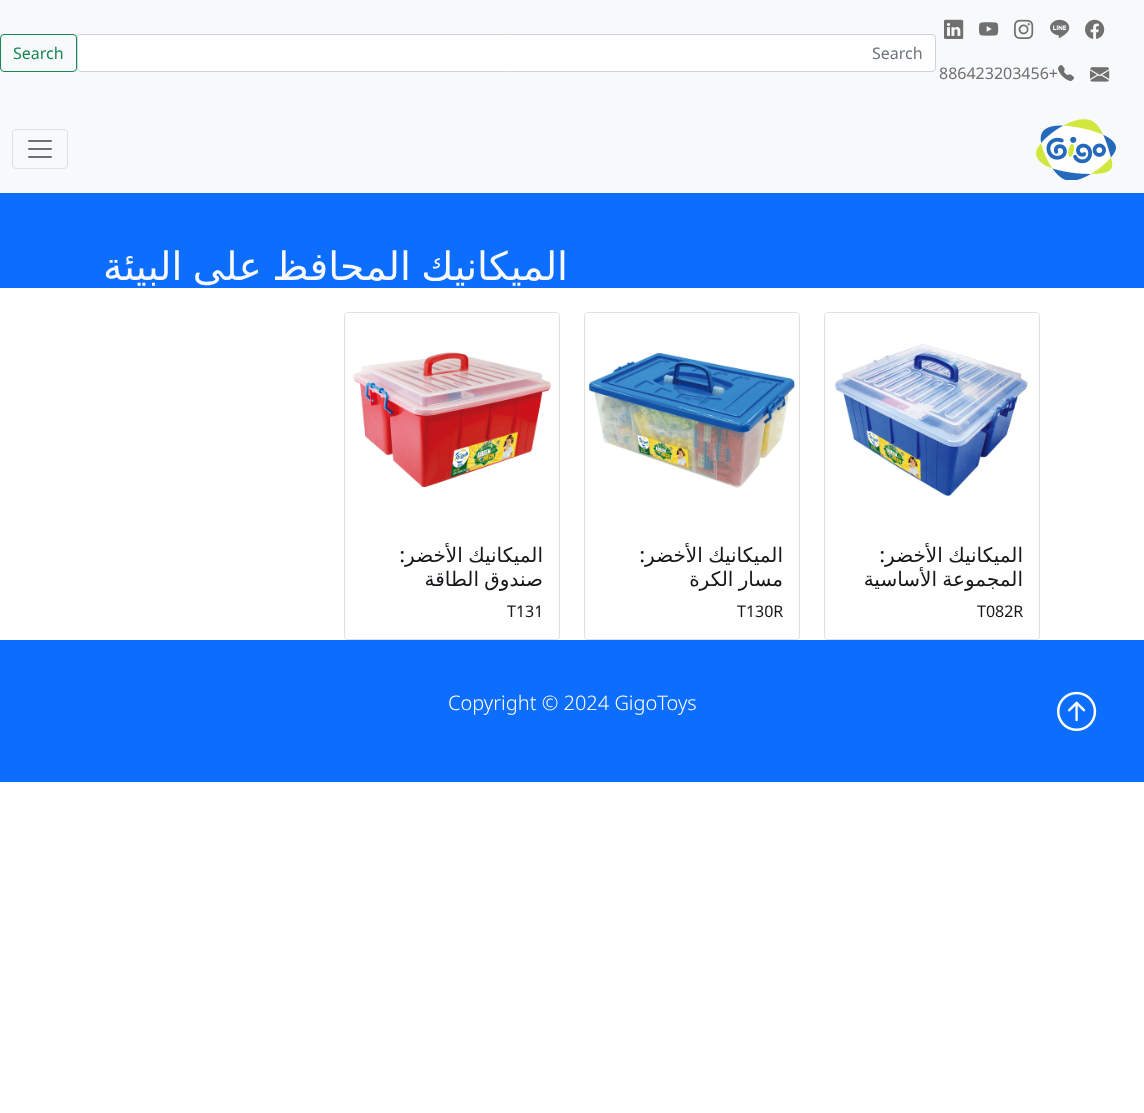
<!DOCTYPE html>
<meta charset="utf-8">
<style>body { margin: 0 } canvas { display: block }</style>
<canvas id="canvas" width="1144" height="1113"></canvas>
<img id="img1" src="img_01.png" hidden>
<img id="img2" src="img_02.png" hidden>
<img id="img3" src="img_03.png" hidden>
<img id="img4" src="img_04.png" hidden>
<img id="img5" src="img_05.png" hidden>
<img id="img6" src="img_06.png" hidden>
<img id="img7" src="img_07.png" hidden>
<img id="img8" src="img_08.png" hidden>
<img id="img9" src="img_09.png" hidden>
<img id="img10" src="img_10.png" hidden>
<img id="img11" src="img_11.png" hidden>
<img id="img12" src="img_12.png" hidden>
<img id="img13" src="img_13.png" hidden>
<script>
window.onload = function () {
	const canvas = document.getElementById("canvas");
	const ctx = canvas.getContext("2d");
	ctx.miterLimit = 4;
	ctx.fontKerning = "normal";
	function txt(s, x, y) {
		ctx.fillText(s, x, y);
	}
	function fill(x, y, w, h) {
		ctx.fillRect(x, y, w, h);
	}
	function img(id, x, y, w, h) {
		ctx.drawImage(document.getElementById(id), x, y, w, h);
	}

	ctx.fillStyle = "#FFFFFF";
	fill(0, 0, 1144, 1113);
	ctx.fillStyle = "#F8F9FA";
	fill(0, 0, 1144, 193);
	ctx.fillStyle = "#FFFFFF";
	ctx.beginPath();
	ctx.roundRect(77.5, 34.5, 858, 37, 3.5);
	ctx.fill();
	ctx.strokeStyle = "#CED4DA";
	ctx.stroke();
	ctx.beginPath();
	ctx.roundRect(0.5, 34.5, 76, 37, 3.5);
	ctx.strokeStyle = "#198754";
	ctx.stroke();
	img("img1", 1085, 19, 20, 20);
	img("img2", 1050, 19, 20, 19);
	img("img3", 1014, 19, 20, 20);
	img("img4", 979, 22, 20, 14);
	img("img5", 944, 19, 20, 20);
	img("img6", 1090, 67, 20, 15);
	img("img7", 1058, 65, 16, 16);
	img("img8", 1036, 119, 80, 61);
	ctx.beginPath();
	ctx.roundRect(12.5, 129.5, 55, 39, 3.5);
	ctx.strokeStyle = "#DFE0E1";
	ctx.stroke();
	img("img9", 28, 140, 24, 18);
	ctx.fillStyle = "#0D6EFD";
	fill(0, 193, 1144, 95);
	ctx.beginPath();
	ctx.roundRect(824.5, 312.5, 215, 327, 3.5);
	ctx.strokeStyle = "#DFDFDF";
	ctx.stroke();
	img("img10", 825, 313, 214, 183);
	ctx.beginPath();
	ctx.roundRect(584.5, 312.5, 215, 327, 3.5);
	ctx.stroke();
	img("img11", 585, 313, 214, 175);
	ctx.beginPath();
	ctx.roundRect(344.5, 312.5, 215, 327, 3.5);
	ctx.stroke();
	img("img12", 345, 313, 214, 175);
	fill(0, 640, 1144, 142);
	img("img13", 1057, 691, 40, 40);
	ctx.font = "16px Noto Sans";
	ctx.fillStyle = "#6C757D";
	txt("Search", 872, 59);
	ctx.fillStyle = "#198754";
	txt("Search", 13, 59);
	ctx.fillStyle = "#707071";
	txt("886423203456+", 939, 79);
	ctx.wordSpacing = "-2px";
	ctx.direction = "rtl";
	ctx.font = "39.2px DejaVu Sans";
	ctx.fillStyle = "#F8F9FA";
	txt("الميكانيك المحافظ على البيئة", 568, 280);
	ctx.wordSpacing = "-1px";
	ctx.font = "20px DejaVu Sans";
	ctx.fillStyle = "#15171A";
	txt("الميكانيك الأخضر", 1023, 562);
	ctx.wordSpacing = "0px";
	ctx.font = "500 20px Noto Sans";
	txt(":", 885, 562);
	ctx.wordSpacing = "-1px";
	ctx.font = "20px DejaVu Sans";
	txt("المجموعة الأساسية", 1023, 586);
	ctx.wordSpacing = "0px";
	ctx.direction = "ltr";
	ctx.font = "16px Noto Sans";
	txt("T082R", 977, 617);
	ctx.wordSpacing = "-1px";
	ctx.direction = "rtl";
	ctx.font = "20px DejaVu Sans";
	txt("الميكانيك الأخضر", 783, 562);
	ctx.wordSpacing = "0px";
	ctx.font = "500 20px Noto Sans";
	txt(":", 645, 562);
	ctx.wordSpacing = "-1px";
	ctx.font = "20px DejaVu Sans";
	txt("مسار الكرة", 783, 586);
	ctx.wordSpacing = "0px";
	ctx.direction = "ltr";
	ctx.font = "16px Noto Sans";
	txt("T130R", 737, 617);
	ctx.wordSpacing = "-1px";
	ctx.direction = "rtl";
	ctx.font = "20px DejaVu Sans";
	txt("الميكانيك الأخضر", 543, 562);
	ctx.wordSpacing = "0px";
	ctx.font = "500 20px Noto Sans";
	txt(":", 405, 562);
	ctx.wordSpacing = "-1px";
	ctx.font = "20px DejaVu Sans";
	txt("صندوق الطاقة", 543, 586);
	ctx.wordSpacing = "0px";
	ctx.direction = "ltr";
	ctx.font = "16px Noto Sans";
	txt("T131", 507, 617);
	ctx.font = "300 20px Noto Sans";
	ctx.fillStyle = "#FFFFFF";
	txt("Copyright © 2024 GigoToys", 448, 710);
};
</script>
